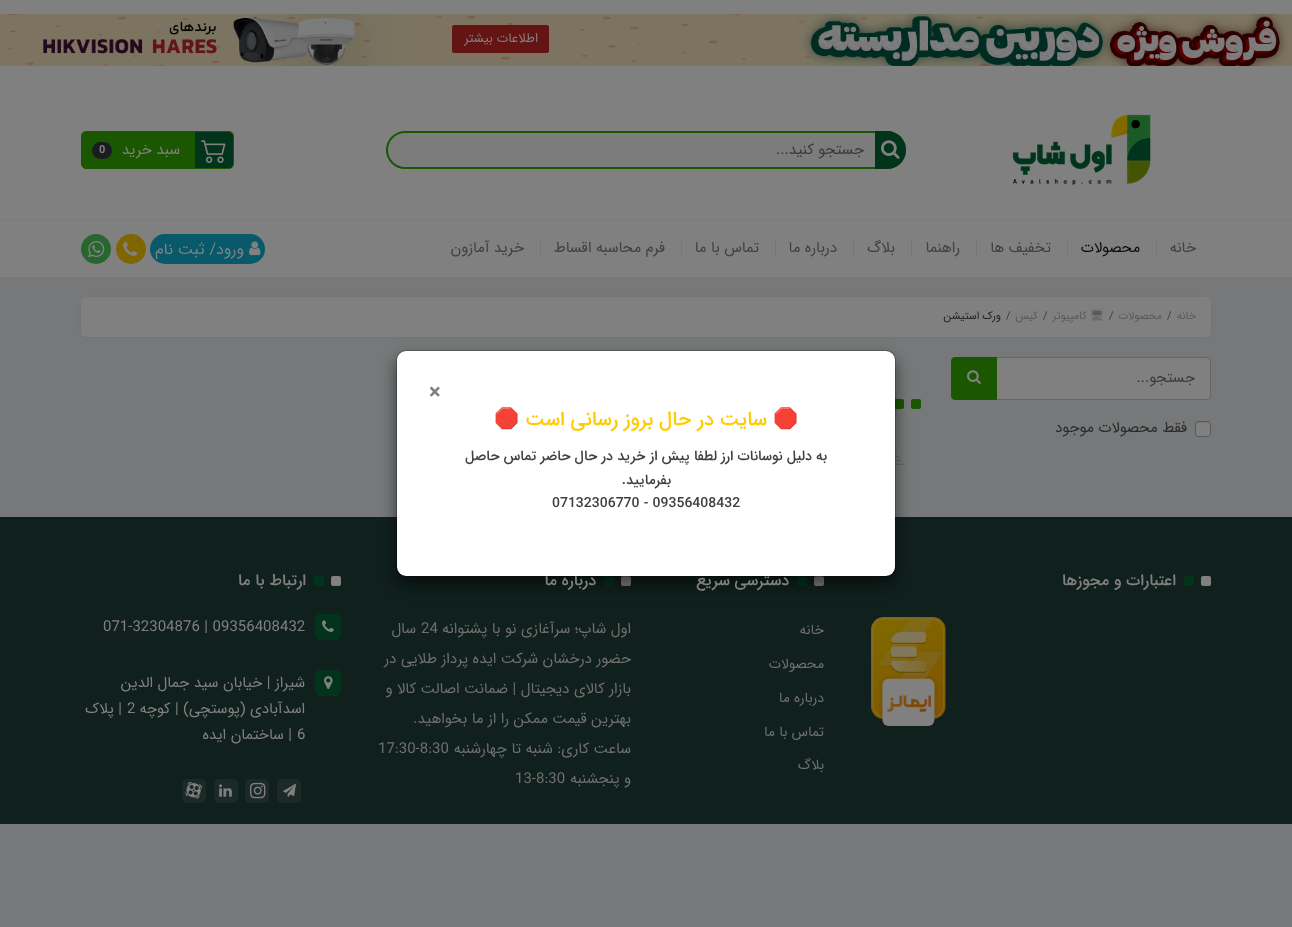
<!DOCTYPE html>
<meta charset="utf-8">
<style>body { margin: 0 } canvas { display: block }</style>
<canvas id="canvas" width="1292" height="927"></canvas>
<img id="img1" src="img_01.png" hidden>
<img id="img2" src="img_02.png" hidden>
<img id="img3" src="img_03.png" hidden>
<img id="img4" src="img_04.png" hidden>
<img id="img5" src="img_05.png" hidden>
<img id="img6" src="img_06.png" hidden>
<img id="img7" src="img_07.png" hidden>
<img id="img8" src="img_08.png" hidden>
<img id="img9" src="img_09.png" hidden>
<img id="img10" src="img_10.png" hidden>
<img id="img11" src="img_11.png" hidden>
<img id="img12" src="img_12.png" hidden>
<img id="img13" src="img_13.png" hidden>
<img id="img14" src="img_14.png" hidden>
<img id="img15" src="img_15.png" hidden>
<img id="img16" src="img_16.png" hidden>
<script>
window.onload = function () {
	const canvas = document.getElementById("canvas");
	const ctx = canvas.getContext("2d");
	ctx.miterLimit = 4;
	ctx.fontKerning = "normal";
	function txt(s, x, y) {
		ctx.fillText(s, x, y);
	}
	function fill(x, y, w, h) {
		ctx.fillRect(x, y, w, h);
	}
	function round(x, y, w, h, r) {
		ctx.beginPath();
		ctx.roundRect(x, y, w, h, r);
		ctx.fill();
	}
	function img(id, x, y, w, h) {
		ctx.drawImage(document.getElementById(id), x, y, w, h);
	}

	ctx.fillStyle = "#777879";
	fill(0, 0, 1292, 927);
	ctx.fillStyle = "#808080";
	fill(0, 0, 1292, 277);
	img("img1", 0, 14, 1292, 52);
	ctx.fillStyle = "#651414";
	ctx.beginPath();
	ctx.roundRect(452.5, 25.5, 96, 27, 1.5);
	ctx.fill();
	ctx.strokeStyle = "#651414";
	ctx.stroke();
	img("img2", 1012, 114, 139, 71);
	ctx.fillStyle = "#7C7C7C";
	ctx.beginPath();
	ctx.roundRect(387, 132, 518, 36, 18);
	ctx.fill();
	ctx.strokeStyle = "#1B5600";
	ctx.lineWidth = 2;
	ctx.stroke();
	ctx.fillStyle = "#01341B";
	ctx.beginPath();
	ctx.roundRect(875, 131, 31, 38, [0, 19, 19, 0]);
	ctx.fill();
	img("img3", 881, 140, 19, 19);
	ctx.fillStyle = "#1B5600";
	ctx.beginPath();
	ctx.roundRect(81.5, 131.5, 152, 37, 4.5);
	ctx.fill();
	ctx.lineWidth = 1;
	ctx.stroke();
	ctx.save();
	ctx.beginPath();
	ctx.roundRect(82, 132, 151, 36, 4);
	ctx.clip();
	ctx.fillStyle = "#01341B";
	ctx.beginPath();
	ctx.roundRect(195, 132, 38, 37, [0, 5, 5, 0]);
	ctx.fill();
	ctx.restore();
	img("img4", 201, 140, 25, 23);
	ctx.fillStyle = "#1A1D20";
	round(92, 142, 20, 17, 8.5);
	ctx.fillStyle = "#7B7B7B";
	fill(0, 220, 1292, 1);
	ctx.fillStyle = "#777777";
	fill(1156, 240, 1, 18);
	fill(1067, 240, 1, 18);
	fill(976, 240, 1, 18);
	fill(911, 240, 1, 18);
	fill(853, 240, 1, 18);
	fill(775, 240, 1, 18);
	fill(681, 240, 1, 18);
	fill(540, 240, 1, 18);
	ctx.fillStyle = "#085969";
	round(150, 234, 115, 30, 15);
	img("img5", 249, 241, 12, 15);
	ctx.fillStyle = "#806600";
	ctx.beginPath();
	ctx.arc(131, 249, 15, 0, Math.PI * 2);
	ctx.fill();
	img("img6", 123, 241, 15, 15);
	ctx.fillStyle = "#28662F";
	ctx.beginPath();
	ctx.arc(96, 249, 15, 0, Math.PI * 2);
	ctx.fill();
	img("img7", 88, 241, 17, 17);
	ctx.fillStyle = "rgba(0, 0, 0, 0.1)";
	ctx.filter = "blur(3.5px)";
	ctx.beginPath();
	ctx.roundRect(84, 301, 1124, 34, 2);
	ctx.fill();
	ctx.filter = "none";
	ctx.fillStyle = "#808080";
	round(81, 297, 1130, 40, 5);
	ctx.beginPath();
	ctx.roundRect(996.5, 357.5, 214, 42, [0, 3.5, 3.5, 0]);
	ctx.fill();
	ctx.strokeStyle = "#646464";
	ctx.stroke();
	ctx.fillStyle = "#1B5600";
	ctx.beginPath();
	ctx.roundRect(951.5, 357.5, 45, 42, [3.5, 0, 0, 3.5]);
	ctx.fill();
	ctx.strokeStyle = "#1B5600";
	ctx.stroke();
	img("img8", 967, 370, 14, 15);
	ctx.fillStyle = "#808080";
	round(1195, 421, 16, 16, 3);
	ctx.fillStyle = "#767676";
	ctx.beginPath();
	ctx.moveTo(1198, 423);
	ctx.lineTo(1206, 423);
	ctx.bezierCurveTo(1209, 423, 1210, 424, 1210, 425.5);
	ctx.bezierCurveTo(1210, 420.5, 1207.5, 422, 1203, 422);
	ctx.bezierCurveTo(1200, 422, 1196, 420.5, 1196, 425);
	ctx.bezierCurveTo(1196, 424, 1197, 423, 1198, 423);
	ctx.closePath();
	ctx.fill();
	ctx.beginPath();
	ctx.roundRect(1195.5, 421.5, 15, 15, 2.5);
	ctx.strokeStyle = "#575B5F";
	ctx.stroke();
	ctx.fillStyle = "#1B5600";
	round(911, 399, 10, 10, 2);
	round(894, 399, 10, 10, 2);
	img("img9", 895, 452, 10, 14);
	ctx.fillStyle = "#10201D";
	fill(0, 517, 1292, 307);
	ctx.fillStyle = "#808080";
	round(814, 576, 10, 10, 2);
	ctx.fillStyle = "#01341B";
	round(797, 576, 10, 10, 2);
	ctx.fillStyle = "#808080";
	round(621, 576, 10, 10, 2);
	ctx.fillStyle = "#01341B";
	round(604, 576, 10, 10, 2);
	ctx.fillStyle = "rgba(0, 0, 0, 0.5)";
	ctx.filter = "blur(8px)";
	ctx.beginPath();
	ctx.roundRect(396, 358, 500, 227, 10);
	ctx.fill();
	ctx.filter = "none";
	ctx.fillStyle = "#808080";
	round(1201, 576, 10, 10, 2);
	ctx.fillStyle = "#01341B";
	round(1184, 576, 10, 10, 2);
	img("img10", 871, 617, 75, 109);
	ctx.fillStyle = "#808080";
	round(331, 576, 10, 10, 2);
	ctx.fillStyle = "#01341B";
	round(314, 576, 10, 10, 2);
	round(315, 614, 26, 26, 5);
	img("img11", 322, 620, 12, 12);
	round(315, 670, 26, 26, 5);
	img("img12", 324, 676, 9, 13);
	ctx.fillStyle = "#1B2A27";
	round(277, 779, 24, 24, 5);
	img("img13", 283, 783, 13, 14);
	round(245, 779, 24, 24, 5);
	img("img14", 250, 782, 16, 17);
	round(214, 779, 24, 24, 5);
	img("img15", 219, 784, 13, 13);
	round(182, 779, 24, 24, 5);
	img("img16", 185, 782, 17, 17);
	ctx.direction = "rtl";
	ctx.font = "13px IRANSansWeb";
	ctx.fillStyle = "#808080";
	txt("اطلاعات بیشتر", 538, 42);
	ctx.font = "15px IRANSansWeb";
	ctx.fillStyle = "#363B3F";
	txt("جستجو کنید...", 864, 154);
	ctx.fillStyle = "#808080";
	txt("سبد خرید", 180, 154);
	ctx.direction = "ltr";
	ctx.font = "bold 11px IRANSansWeb";
	txt("0", 99, 153);
	ctx.direction = "rtl";
	ctx.font = "15px IRANSansWeb";
	ctx.fillStyle = "#404040";
	txt("خانه", 1196, 252);
	ctx.fillStyle = "#0D0D0D";
	txt("محصولات", 1140, 252);
	ctx.fillStyle = "#404040";
	txt("تخفیف ها", 1051, 252);
	txt("راهنما", 960, 252);
	txt("بلاگ", 895, 252);
	txt("درباره ما", 837, 252);
	txt("تماس با ما", 759, 252);
	txt("فرم محاسبه اقساط", 665, 252);
	txt("خرید آمازون", 524, 252);
	ctx.font = "16px IRANSansWeb";
	ctx.fillStyle = "#808080";
	txt("ورود/ ثبت نام", 244, 254);
	ctx.font = "11px IRANSansWeb";
	ctx.fillStyle = "#595959";
	txt("خانه", 1196, 319);
	ctx.direction = "ltr";
	ctx.fillStyle = "#363B3F";
	txt("/", 1167, 319);
	ctx.direction = "rtl";
	ctx.fillStyle = "#595959";
	txt("محصولات", 1162, 319);
	ctx.direction = "ltr";
	ctx.fillStyle = "#363B3F";
	txt("/", 1109, 319);
	ctx.direction = "rtl";
	ctx.font = "11px Noto Emoji";
	ctx.fillStyle = "#595959";
	txt("🖥", 1104, 319);
	ctx.font = "11px IRANSansWeb";
	txt("کامپیوتر", 1087, 319);
	ctx.direction = "ltr";
	ctx.fillStyle = "#363B3F";
	txt("/", 1043, 319);
	ctx.direction = "rtl";
	ctx.fillStyle = "#595959";
	txt("کیس", 1038, 319);
	ctx.direction = "ltr";
	ctx.fillStyle = "#363B3F";
	txt("/", 1006, 319);
	ctx.direction = "rtl";
	ctx.fillStyle = "#222222";
	txt("ورک استیشن", 1001, 319);
	ctx.font = "15px IRANSansWeb";
	ctx.fillStyle = "#363B3F";
	txt("جستجو...", 1195, 382);
	ctx.fillStyle = "#2B2B2B";
	txt("فقط محصولات موجود", 1187, 432);
	ctx.font = "500 16px IRANSansWeb";
	ctx.fillStyle = "#808080";
	txt("اعتبارات و مجوزها", 1176, 585);
	txt("دسترسی سریع", 789, 585);
	ctx.font = "14px IRANSansWeb";
	ctx.fillStyle = "#6F6F6F";
	txt("خانه", 824, 634);
	txt("محصولات", 824, 668);
	txt("درباره ما", 824, 702);
	txt("تماس با ما", 824, 736);
	txt("بلاگ", 824, 769);
	ctx.font = "500 16px IRANSansWeb";
	ctx.fillStyle = "#808080";
	txt("درباره ما", 596, 585);
	ctx.fillStyle = "#FFFFFF";
	round(397, 351, 498, 225, 9);
	ctx.beginPath();
	ctx.roundRect(396.5, 350.5, 499, 226, 9.5);
	ctx.strokeStyle = "rgba(0, 0, 0, 0.2)";
	ctx.stroke();
	ctx.direction = "ltr";
	ctx.font = "bold 22px IRANSansWeb";
	ctx.fillStyle = "#808080";
	txt("×", 429, 399);
	ctx.font = "500 14px IRANSansWeb";
	ctx.fillStyle = "#404040";
	txt("07132306770 - 09356408432", 552, 507);
	ctx.direction = "rtl";
	txt("بفرمایید.", 671, 484);
	txt("به دلیل نوسانات ارز لطفا پیش از خرید در حال حاضر تماس حاصل", 827, 460);
	ctx.font = "20px Noto Color Emoji";
	ctx.fillStyle = "#FFCC00";
	txt("🛑", 798, 425);
	ctx.font = "500 20px IRANSansWeb";
	txt("سایت در حال بروز رسانی است", 767, 425);
	ctx.font = "20px Noto Color Emoji";
	txt("🛑", 519, 425);
	ctx.font = "15px IRANSansWeb";
	ctx.fillStyle = "#6F6F6F";
	txt("اول شاپ؛ سرآغازی نو با پشتوانه", 631, 633);
	ctx.direction = "ltr";
	txt("24", 421, 633);
	ctx.direction = "rtl";
	txt("سال", 416, 633);
	txt("حضور درخشان شرکت ایده پرداز طلایی در", 631, 663);
	txt("بازار کالای دیجیتال | ضمانت اصالت کالا و", 631, 693);
	txt("بهترین قیمت ممکن را از ما بخواهید.", 631, 723);
	txt("ساعت کاری: شنبه تا چهارشنبه", 631, 753);
	ctx.direction = "ltr";
	txt("17:30-8:30", 378, 753);
	ctx.direction = "rtl";
	txt("و پنجشنبه", 631, 783);
	ctx.direction = "ltr";
	txt("13-8:30", 515, 783);
	ctx.direction = "rtl";
	ctx.font = "500 16px IRANSansWeb";
	ctx.fillStyle = "#808080";
	txt("ارتباط با ما", 306, 585);
	ctx.direction = "ltr";
	ctx.font = "15px IRANSansWeb";
	txt("071-32304876 | 09356408432", 103, 631);
	ctx.direction = "rtl";
	txt("شیراز | خیابان سید جمال الدین", 305, 687);
	txt("اسدآبادی (پوستچی) | کوچه", 305, 713);
	ctx.direction = "ltr";
	txt("2", 127, 713);
	ctx.direction = "rtl";
	txt("| پلاک", 122, 713);
	ctx.direction = "ltr";
	txt("6", 297, 739);
	ctx.direction = "rtl";
	txt("| ساختمان ایده", 292, 739);
};
</script>
